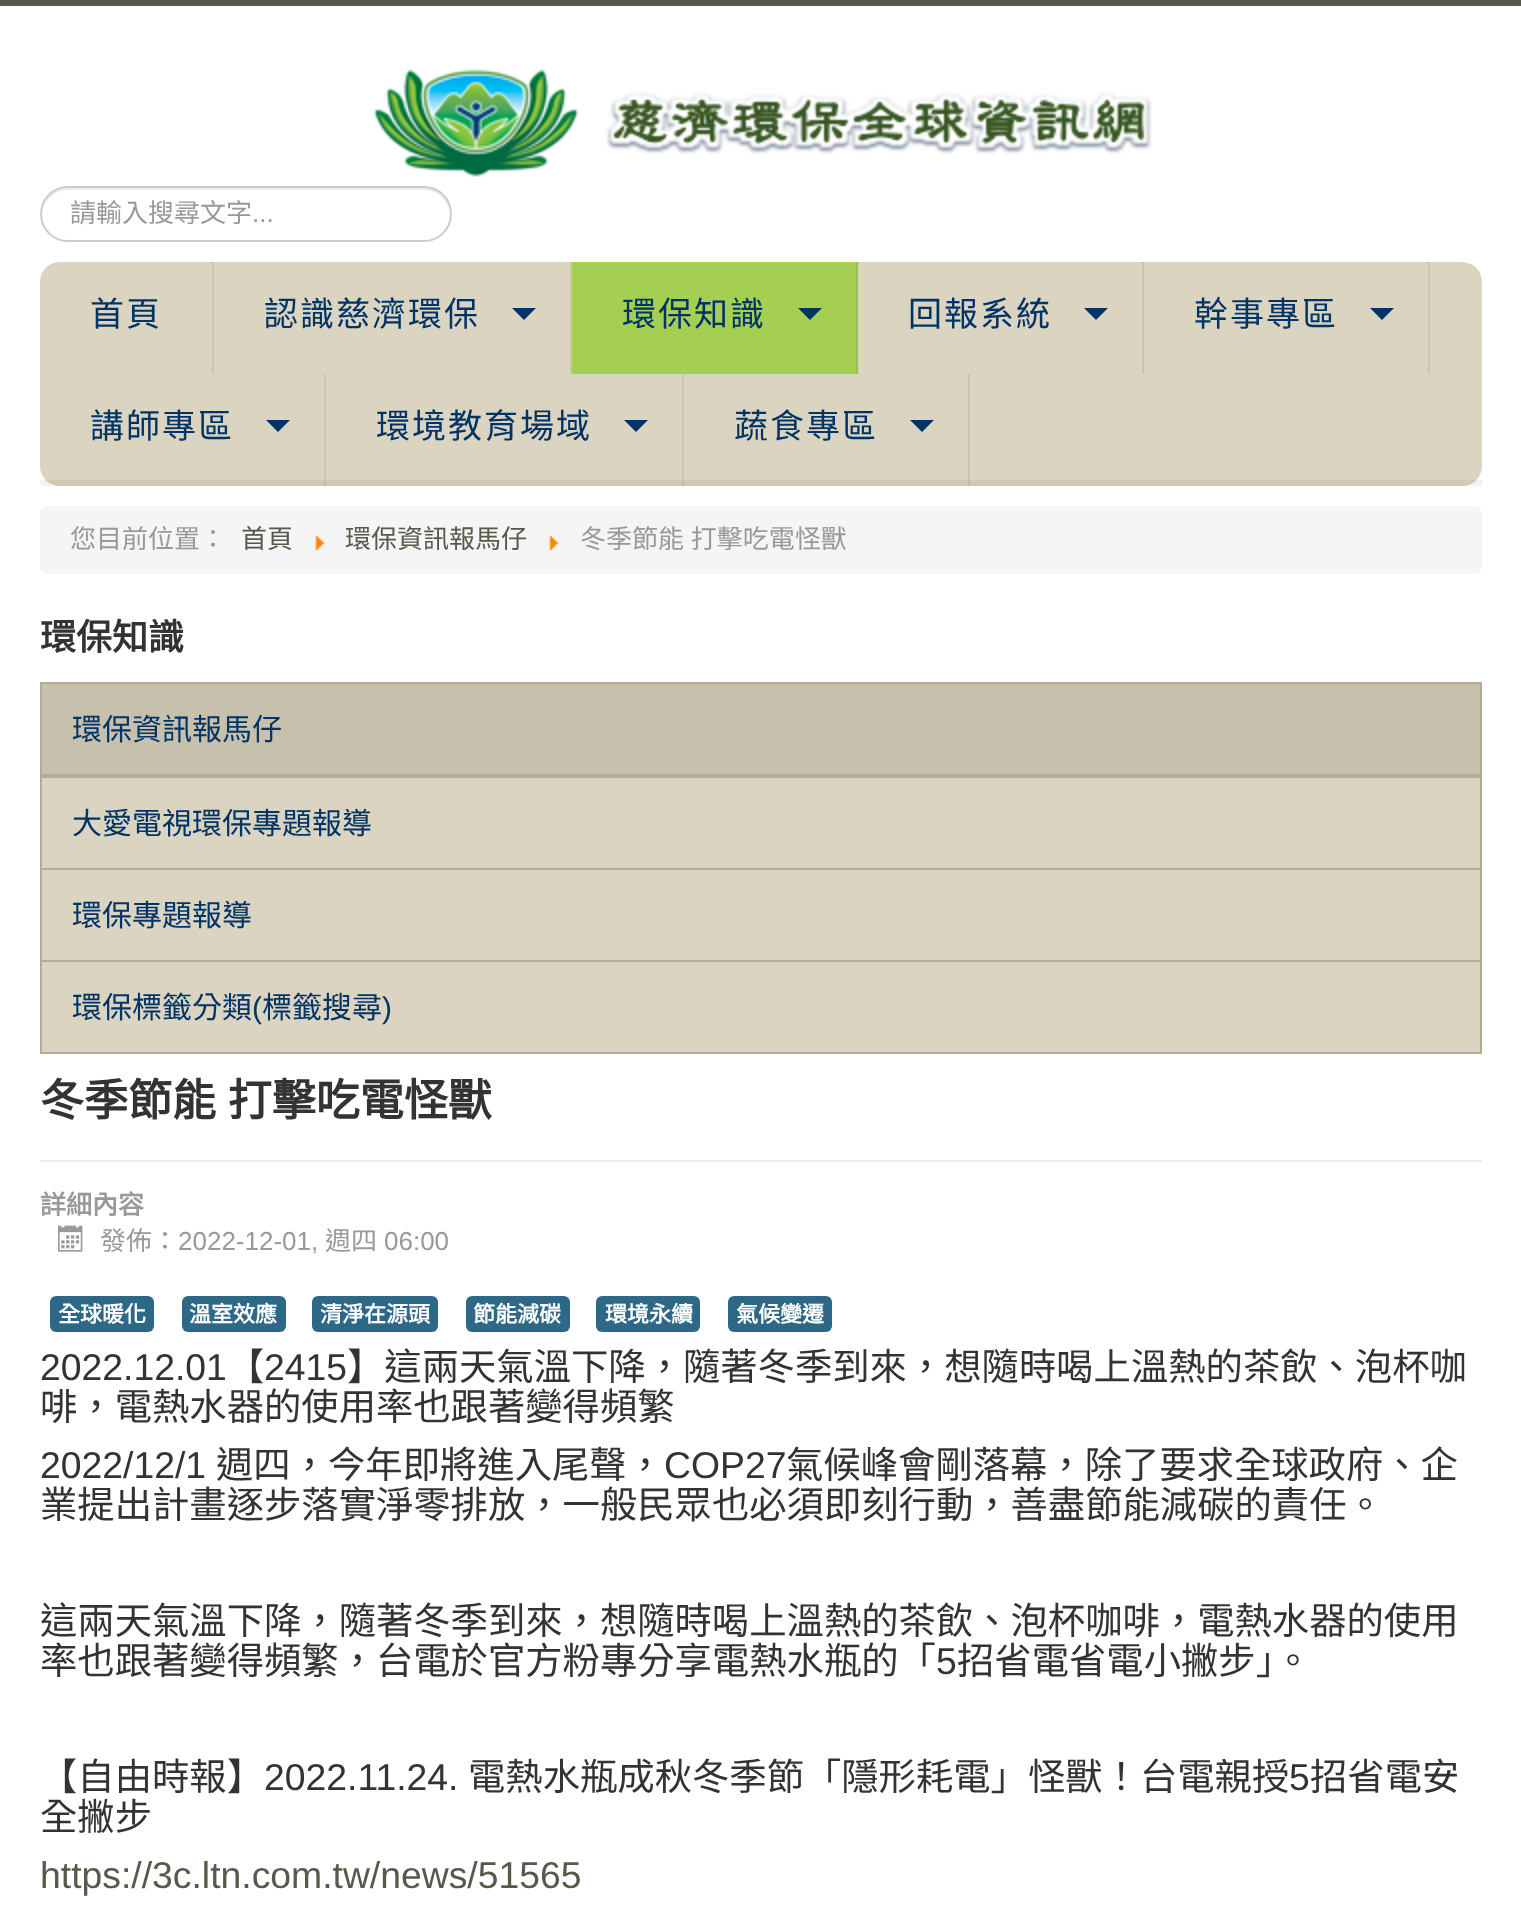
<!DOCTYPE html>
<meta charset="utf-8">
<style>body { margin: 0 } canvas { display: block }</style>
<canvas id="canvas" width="1521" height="1931"></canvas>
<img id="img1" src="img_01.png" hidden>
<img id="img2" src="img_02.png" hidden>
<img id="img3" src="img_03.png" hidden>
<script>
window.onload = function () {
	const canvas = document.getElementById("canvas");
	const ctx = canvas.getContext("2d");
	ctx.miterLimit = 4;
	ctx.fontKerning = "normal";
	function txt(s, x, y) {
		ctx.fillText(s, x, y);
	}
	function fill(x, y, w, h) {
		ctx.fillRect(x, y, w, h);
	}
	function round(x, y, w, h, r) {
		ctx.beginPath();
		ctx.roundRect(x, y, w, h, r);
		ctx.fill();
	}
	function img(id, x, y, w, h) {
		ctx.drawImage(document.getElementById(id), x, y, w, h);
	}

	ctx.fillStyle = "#FFFFFF";
	fill(0, 0, 1521, 1931);
	ctx.fillStyle = "#59584A";
	fill(0, 0, 1521, 6);
	img("img1", 373, 69, 779, 108);
	ctx.fillStyle = "#ECECEC";
	ctx.beginPath();
	ctx.moveTo(68, 190);
	ctx.lineTo(424, 190);
	ctx.bezierCurveTo(438, 190, 449, 201, 450, 215);
	ctx.bezierCurveTo(451, 200, 439, 188, 424, 188);
	ctx.lineTo(68, 188);
	ctx.bezierCurveTo(53, 188, 41, 200, 42, 215);
	ctx.bezierCurveTo(43, 201, 54, 190, 68, 190);
	ctx.closePath();
	ctx.fill();
	ctx.beginPath();
	ctx.roundRect(41, 187, 410, 54, 27);
	ctx.strokeStyle = "#CCCCCC";
	ctx.lineWidth = 2;
	ctx.stroke();
	ctx.fillStyle = "#DBD4C0";
	round(40, 262, 1442, 224, 20);
	ctx.fillStyle = "rgba(0, 0, 0, 0.05)";
	fill(40, 480, 1442, 6);
	ctx.fillStyle = "#CAC4B3";
	fill(212, 262, 2, 112);
	fill(570, 262, 2, 112);
	ctx.fillStyle = "#003366";
	ctx.beginPath();
	ctx.moveTo(512, 308);
	ctx.lineTo(536, 308);
	ctx.lineTo(524, 320);
	ctx.closePath();
	ctx.fill();
	ctx.fillStyle = "#A5CF53";
	fill(572, 262, 284, 112);
	ctx.fillStyle = "#9BC053";
	fill(856, 262, 2, 112);
	ctx.fillStyle = "#003366";
	ctx.beginPath();
	ctx.moveTo(798, 308);
	ctx.lineTo(822, 308);
	ctx.lineTo(810, 320);
	ctx.closePath();
	ctx.fill();
	ctx.fillStyle = "#CAC4B3";
	fill(1142, 262, 2, 112);
	ctx.fillStyle = "#003366";
	ctx.beginPath();
	ctx.moveTo(1084, 308);
	ctx.lineTo(1108, 308);
	ctx.lineTo(1096, 320);
	ctx.closePath();
	ctx.fill();
	ctx.fillStyle = "#CAC4B3";
	fill(1428, 262, 2, 112);
	ctx.fillStyle = "#003366";
	ctx.beginPath();
	ctx.moveTo(1370, 308);
	ctx.lineTo(1394, 308);
	ctx.lineTo(1382, 320);
	ctx.closePath();
	ctx.fill();
	ctx.fillStyle = "rgba(80, 80, 80, 0.12)";
	fill(324, 374, 2, 112);
	ctx.fillStyle = "#003366";
	ctx.beginPath();
	ctx.moveTo(266, 420);
	ctx.lineTo(290, 420);
	ctx.lineTo(278, 432);
	ctx.closePath();
	ctx.fill();
	ctx.fillStyle = "rgba(80, 80, 80, 0.12)";
	fill(682, 374, 2, 112);
	ctx.fillStyle = "#003366";
	ctx.beginPath();
	ctx.moveTo(624, 420);
	ctx.lineTo(648, 420);
	ctx.lineTo(636, 432);
	ctx.closePath();
	ctx.fill();
	ctx.fillStyle = "rgba(80, 80, 80, 0.12)";
	fill(968, 374, 2, 112);
	ctx.fillStyle = "#003366";
	ctx.beginPath();
	ctx.moveTo(910, 420);
	ctx.lineTo(934, 420);
	ctx.lineTo(922, 432);
	ctx.closePath();
	ctx.fill();
	ctx.fillStyle = "#F5F5F5";
	round(40, 506, 1442, 68, 8);
	img("img2", 315, 535, 10, 15);
	img("img2", 549, 535, 10, 15);
	ctx.fillStyle = "#C7C0AC";
	ctx.beginPath();
	ctx.rect(41, 683, 1440, 92);
	ctx.fill();
	ctx.strokeStyle = "#B3AC98";
	ctx.stroke();
	ctx.fillStyle = "#DBD4C0";
	fill(42, 778, 1438, 90);
	ctx.fillStyle = "#B3AC98";
	fill(40, 776, 1442, 2);
	fill(1480, 776, 2, 92);
	fill(40, 776, 2, 92);
	ctx.fillStyle = "#DBD4C0";
	fill(42, 870, 1438, 90);
	ctx.fillStyle = "#B3AC98";
	fill(40, 868, 1442, 2);
	fill(1480, 868, 2, 92);
	fill(40, 868, 2, 92);
	ctx.fillStyle = "#DBD4C0";
	ctx.beginPath();
	ctx.rect(41, 961, 1440, 92);
	ctx.fill();
	ctx.stroke();
	ctx.fillStyle = "#EEEEEE";
	fill(40, 1160, 1442, 2);
	img("img3", 58, 1225, 25, 27);
	ctx.fillStyle = "#2D6987";
	round(50, 1296, 104, 36, 6);
	round(182, 1296, 104, 36, 6);
	round(312, 1296, 126, 36, 6);
	round(466, 1296, 104, 36, 6);
	round(596, 1296, 104, 36, 6);
	round(728, 1296, 104, 36, 6);
	ctx.font = "26px Noto Sans CJK TC";
	ctx.fillStyle = "#999999";
	txt("請輸入搜尋文字", 70, 222);
	ctx.font = "26px Liberation Sans";
	txt("...", 252, 222);
	ctx.letterSpacing = "2px";
	ctx.font = "34px Noto Sans CJK TC";
	ctx.fillStyle = "#003366";
	txt("首頁", 90, 326);
	txt("認識慈濟環保", 264, 326);
	txt("環保知識", 622, 326);
	txt("回報系統", 908, 326);
	txt("幹事專區", 1194, 326);
	txt("講師專區", 90, 438);
	txt("環境教育場域", 376, 438);
	txt("蔬食專區", 734, 438);
	ctx.letterSpacing = "0px";
	ctx.font = "26px Noto Sans CJK TC";
	ctx.fillStyle = "#999999";
	txt("您目前位置：", 70, 548);
	ctx.fillStyle = "#59584A";
	txt("首頁", 241, 548);
	txt("環保資訊報馬仔", 345, 548);
	ctx.wordSpacing = "1px";
	ctx.fillStyle = "#999999";
	txt("冬季節能 打擊吃電怪獸", 580, 548);
	ctx.wordSpacing = "0px";
	ctx.font = "bold 36px Noto Sans CJK TC";
	ctx.fillStyle = "#333333";
	txt("環保知識", 40, 650);
	ctx.font = "30px Noto Sans CJK TC";
	ctx.fillStyle = "#003366";
	txt("環保資訊報馬仔", 72, 740);
	txt("大愛電視環保專題報導", 72, 834);
	txt("環保專題報導", 72, 926);
	txt("環保標籤分類", 72, 1018);
	ctx.font = "30px Liberation Sans";
	txt("(", 252, 1018);
	ctx.font = "30px Noto Sans CJK TC";
	txt("標籤搜尋", 262, 1018);
	ctx.font = "30px Liberation Sans";
	txt(")", 382, 1018);
	ctx.wordSpacing = "2px";
	ctx.font = "bold 44px Noto Sans CJK TC";
	ctx.fillStyle = "#333333";
	txt("冬季節能 打擊吃電怪獸", 40, 1116);
	ctx.wordSpacing = "0px";
	ctx.font = "bold 26px Noto Sans CJK TC";
	ctx.fillStyle = "#999999";
	txt("詳細內容", 40, 1214);
	ctx.font = "26px Noto Sans CJK TC";
	txt("發佈：", 100, 1250);
	ctx.font = "26px Liberation Sans";
	txt("2022-12-01,", 178, 1250);
	ctx.font = "26px Noto Sans CJK TC";
	txt("週四", 325, 1250);
	ctx.font = "26px Liberation Sans";
	txt("06:00", 384, 1250);
	ctx.font = "bold 22px Noto Sans CJK TC";
	ctx.fillStyle = "#FFFFFF";
	txt("全球暖化", 58, 1322);
	txt("溫室效應", 189, 1322);
	txt("清淨在源頭", 320, 1322);
	txt("節能減碳", 473, 1322);
	txt("環境永續", 605, 1322);
	txt("氣候變遷", 736, 1322);
	ctx.font = "37.35px Liberation Sans";
	ctx.fillStyle = "#333333";
	txt("2022.12.01", 40, 1380);
	ctx.font = "37.35px Noto Sans CJK TC";
	txt("【", 227, 1380);
	ctx.font = "37.35px Liberation Sans";
	txt("2415", 264, 1380);
	ctx.font = "37.35px Noto Sans CJK TC";
	txt("】這兩天氣溫下降，隨著冬季到來，想隨時喝上溫熱的茶飲、泡杯咖", 347, 1380);
	txt("啡，電熱水器的使用率也跟著變得頻繁", 40, 1420);
	ctx.font = "37.35px Liberation Sans";
	txt("2022/12/1", 40, 1478);
	ctx.font = "37.35px Noto Sans CJK TC";
	txt("週四，今年即將進入尾聲，", 216, 1478);
	ctx.font = "37.35px Liberation Sans";
	txt("COP27", 664, 1478);
	ctx.font = "37.35px Noto Sans CJK TC";
	txt("氣候峰會剛落幕，除了要求全球政府、企", 786, 1478);
	txt("業提出計畫逐步落實淨零排放，一般民眾也必須即刻行動，善盡節能減碳的責任。", 40, 1518);
	txt("這兩天氣溫下降，隨著冬季到來，想隨時喝上溫熱的茶飲、泡杯咖啡，電熱水器的使用", 40, 1634);
	txt("率也跟著變得頻繁，台電於官方粉專分享電熱水瓶的「", 40, 1674);
	ctx.font = "37.35px Liberation Sans";
	txt("5", 936, 1674);
	ctx.font = "37.35px Noto Sans CJK TC";
	txt("招省電省電小撇步」。", 957, 1674);
	txt("【自由時報】", 40, 1790);
	ctx.font = "37.35px Liberation Sans";
	txt("2022.11.24.", 264, 1790);
	ctx.font = "37.35px Noto Sans CJK TC";
	txt("電熱水瓶成秋冬季節「隱形耗電」怪獸！台電親授", 468, 1790);
	ctx.font = "37.35px Liberation Sans";
	txt("5", 1289, 1790);
	ctx.font = "37.35px Noto Sans CJK TC";
	txt("招省電安", 1310, 1790);
	txt("全撇步", 40, 1830);
	ctx.font = "37.35px Liberation Sans";
	ctx.fillStyle = "#59584A";
	txt("https://3c.ltn.com.tw/news/51565", 40, 1888);
};
</script>
